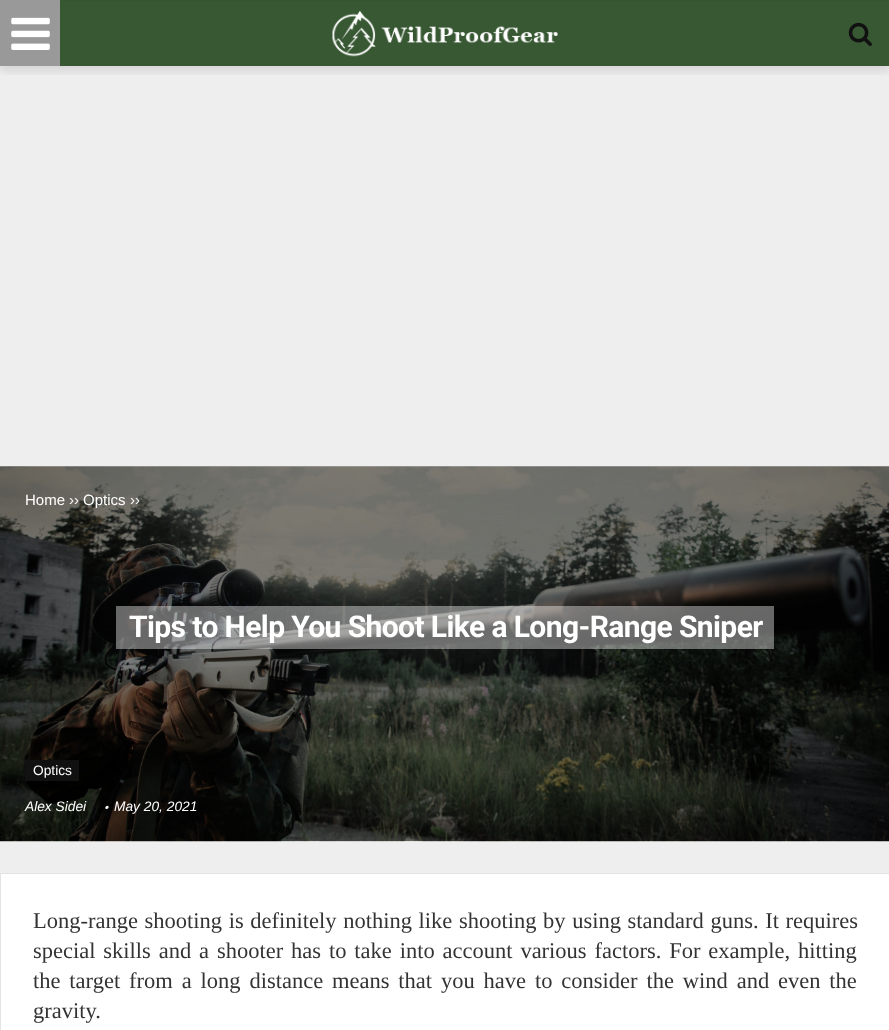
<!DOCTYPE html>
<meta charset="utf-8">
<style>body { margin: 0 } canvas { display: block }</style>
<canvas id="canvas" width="889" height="1030"></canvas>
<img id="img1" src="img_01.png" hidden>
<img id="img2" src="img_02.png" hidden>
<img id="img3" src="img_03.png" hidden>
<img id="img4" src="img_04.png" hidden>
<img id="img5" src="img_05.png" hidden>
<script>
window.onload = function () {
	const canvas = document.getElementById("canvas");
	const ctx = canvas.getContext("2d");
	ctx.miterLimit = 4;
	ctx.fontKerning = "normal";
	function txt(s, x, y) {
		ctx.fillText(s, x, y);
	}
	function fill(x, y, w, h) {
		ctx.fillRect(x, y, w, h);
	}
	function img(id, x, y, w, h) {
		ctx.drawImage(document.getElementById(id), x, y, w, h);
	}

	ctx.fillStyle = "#EEEEEE";
	fill(0, 0, 889, 1030);
	ctx.fillStyle = "#385833";
	fill(60, 1, 829, 65);
	ctx.save();
	ctx.beginPath();
	ctx.rect(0, 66, 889, 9);
	ctx.clip();
	ctx.fillStyle = "rgba(0, 0, 0, 0.1)";
	ctx.filter = "blur(5px)";
	ctx.beginPath();
	ctx.rect(0, 5, 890, 66);
	ctx.fill();
	ctx.filter = "none";
	ctx.restore();
	ctx.fillStyle = "#355430";
	fill(60, 0, 829, 1);
	ctx.fillStyle = "#999999";
	fill(0, 0, 60, 66);
	img("img1", 11, 17, 39, 33);
	img("img2", 332, 11, 226, 46);
	img("img3", 848, 22, 24, 24);
	img("img4", 0, 466, 889, 376);
	ctx.fillStyle = "rgba(255, 255, 255, 0.4)";
	fill(116, 606, 658, 43);
	ctx.fillStyle = "#111111";
	fill(25, 760, 54, 21);
	img("img5", 105, 805, 4, 4);
	ctx.fillStyle = "#FFFFFF";
	ctx.beginPath();
	ctx.rect(0.5, 873.5, 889, 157);
	ctx.fill();
	ctx.strokeStyle = "#E3E3E3";
	ctx.stroke();
	ctx.font = "15px Liberation Sans";
	txt("Home", 25, 505);
	ctx.fillStyle = "#F4F4F4";
	txt("››", 69, 505);
	ctx.fillStyle = "#FFFFFF";
	txt("Optics", 83, 505);
	ctx.fillStyle = "#F4F4F4";
	txt("››", 130, 505);
	ctx.letterSpacing = "-0.6px";
	ctx.font = "bold 30px Roboto";
	ctx.fillStyle = "#FFFFFF";
	txt("Tips to Help You Shoot Like a Long-Range Sniper", 129, 637);
	ctx.letterSpacing = "0px";
	ctx.font = "13.75px Liberation Sans";
	txt("Optics", 33, 775);
	ctx.font = "italic 13.75px Liberation Sans";
	txt("Alex Sidei", 25, 811);
	txt("May 20, 2021", 114, 811);
	ctx.wordSpacing = "1px";
	ctx.font = "22.5px Liberation Serif";
	ctx.fillStyle = "#333333";
	txt("Long-range shooting is definitely nothing like shooting by using standard guns. It requires", 33, 928);
	ctx.wordSpacing = "2.25px";
	txt("special skills and a shooter has to take into account various factors. For example, hitting", 33, 958);
	ctx.wordSpacing = "3.25px";
	txt("the target from a long distance means that you have to consider the wind and even the", 33, 988);
	ctx.wordSpacing = "0px";
	txt("gravity.", 33, 1018);
};
</script>
